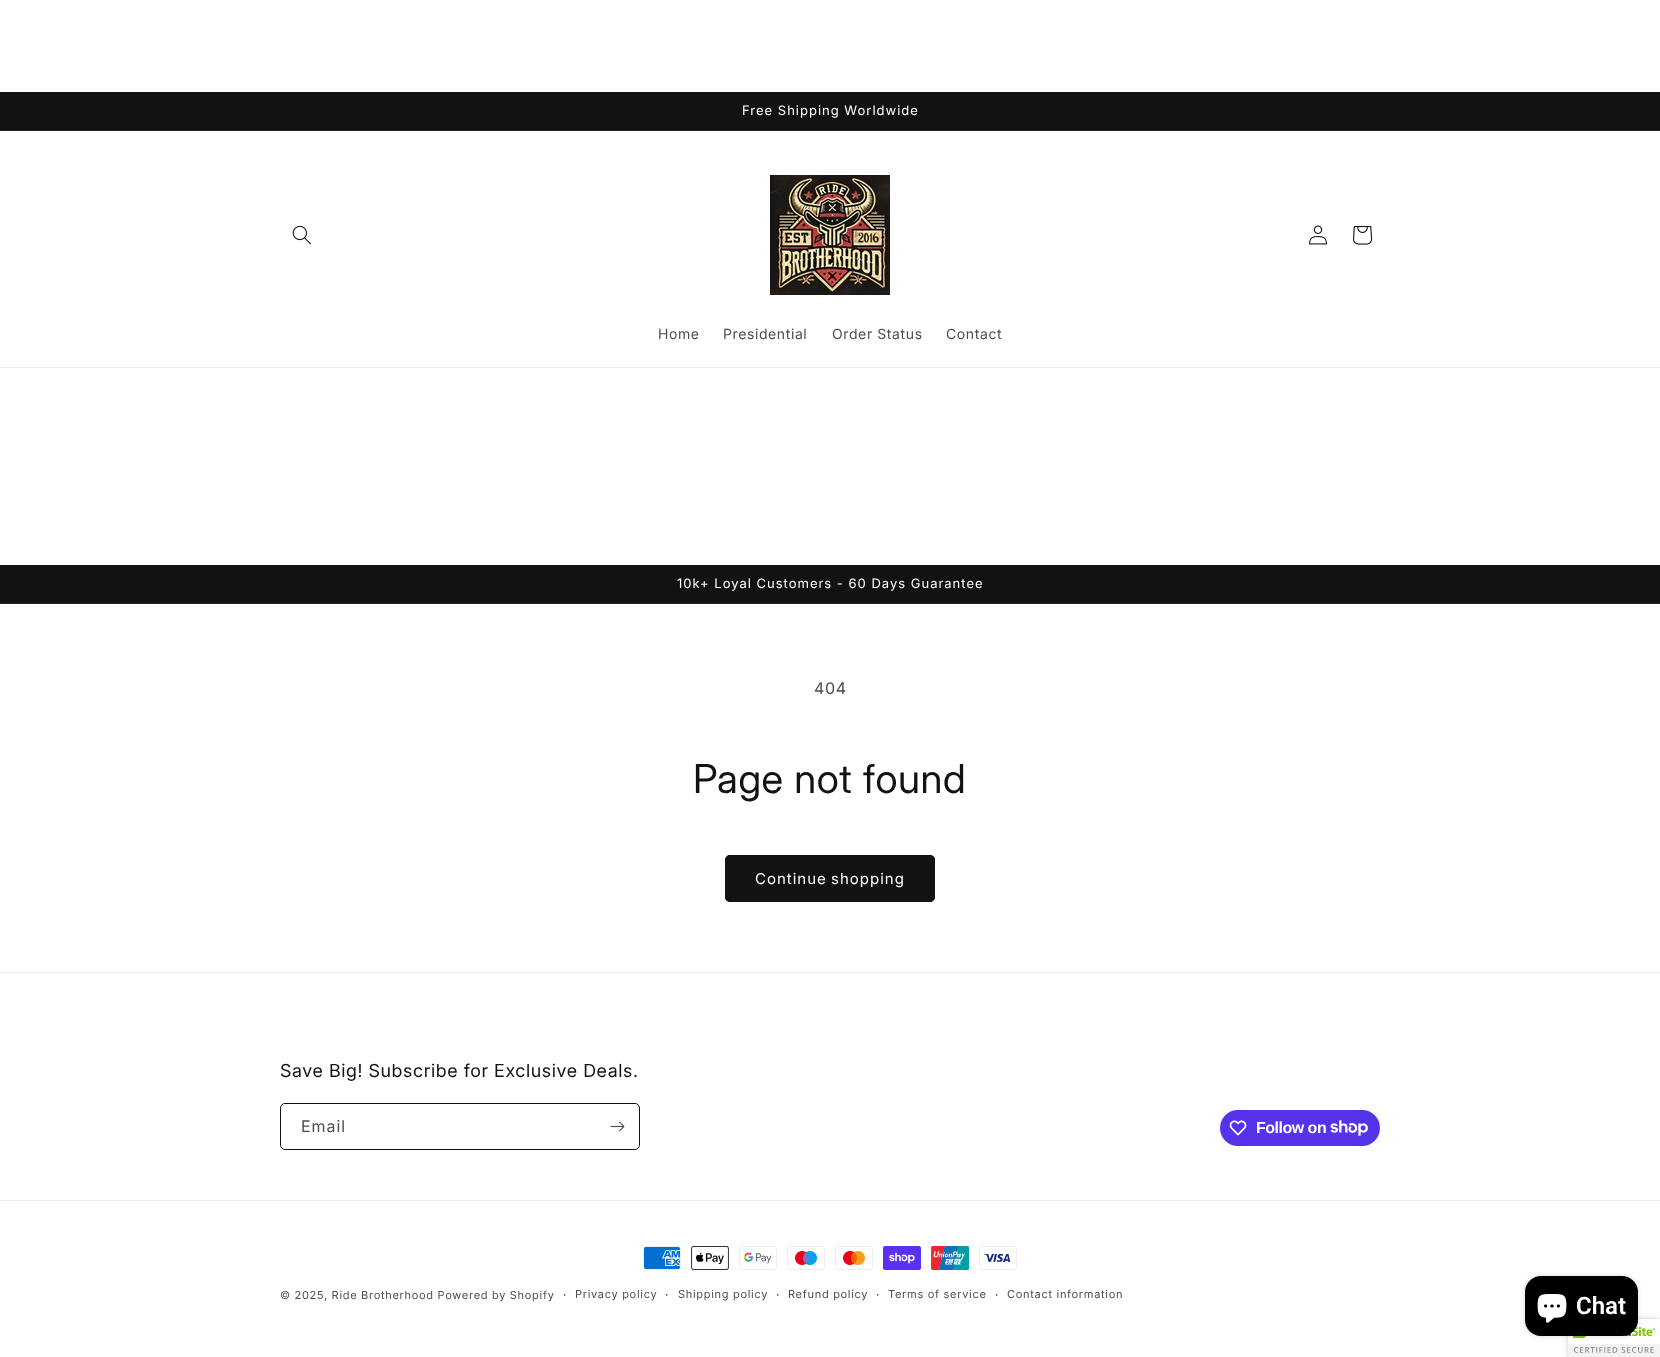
<!DOCTYPE html>
<meta charset="utf-8">
<style>body { margin: 0 } canvas { display: block }</style>
<canvas id="canvas" width="1660" height="1357"></canvas>
<img id="img1" src="img_01.png" hidden>
<img id="img2" src="img_02.png" hidden>
<img id="img3" src="img_03.png" hidden>
<img id="img4" src="img_04.png" hidden>
<img id="img5" src="img_05.png" hidden>
<img id="img6" src="img_06.png" hidden>
<img id="img7" src="img_07.png" hidden>
<img id="img8" src="img_08.png" hidden>
<img id="img9" src="img_09.png" hidden>
<img id="img10" src="img_10.png" hidden>
<img id="img11" src="img_11.png" hidden>
<img id="img12" src="img_12.png" hidden>
<img id="img13" src="img_13.png" hidden>
<img id="img14" src="img_14.png" hidden>
<img id="img15" src="img_15.png" hidden>
<img id="img16" src="img_17.png" hidden>
<img id="img17" src="img_16.png" hidden>
<script>
window.onload = function () {
	const canvas = document.getElementById("canvas");
	const ctx = canvas.getContext("2d");
	ctx.miterLimit = 4;
	ctx.fontKerning = "normal";
	function txt(s, x, y) {
		ctx.fillText(s, x, y);
	}
	function fill(x, y, w, h) {
		ctx.fillRect(x, y, w, h);
	}
	function round(x, y, w, h, r) {
		ctx.beginPath();
		ctx.roundRect(x, y, w, h, r);
		ctx.fill();
	}
	function img(id, x, y, w, h) {
		ctx.drawImage(document.getElementById(id), x, y, w, h);
	}

	ctx.fillStyle = "#FFFFFF";
	fill(0, 0, 1660, 1357);
	ctx.fillStyle = "#121212";
	fill(0, 92, 1660, 38);
	ctx.fillStyle = "#252525";
	fill(0, 130, 1660, 1);
	ctx.fillStyle = "#ECECEC";
	fill(0, 367, 1660, 1);
	img("img1", 292, 225, 19, 20);
	img("img2", 770, 175, 120, 120);
	img("img3", 1309, 225, 18, 20);
	img("img4", 1353, 226, 20, 19);
	ctx.fillStyle = "#121212";
	fill(0, 565, 1660, 38);
	ctx.fillStyle = "#252525";
	fill(0, 603, 1660, 1);
	ctx.fillStyle = "#121212";
	round(725, 855, 210, 47, 5);
	ctx.beginPath();
	ctx.roundRect(725.5, 855.5, 209, 46, 4.5);
	ctx.strokeStyle = "#121212";
	ctx.stroke();
	ctx.fillStyle = "#ECECEC";
	fill(0, 972, 1660, 1);
	ctx.beginPath();
	ctx.roundRect(280.5, 1103.5, 359, 46, 4.5);
	ctx.stroke();
	img("img5", 610, 1121, 15, 11);
	ctx.fillStyle = "#5433EB";
	round(1220, 1110, 160, 36, 18);
	img("img6", 1229, 1120, 18, 16);
	img("img7", 1330, 1120, 38, 16);
	ctx.fillStyle = "#ECECEC";
	fill(0, 1200, 1660, 1);
	img("img8", 643, 1246, 38, 24);
	img("img9", 691, 1246, 38, 24);
	img("img10", 739, 1246, 38, 24);
	img("img11", 787, 1246, 38, 24);
	img("img12", 835, 1246, 38, 24);
	img("img13", 883, 1246, 38, 24);
	img("img14", 931, 1246, 38, 24);
	img("img15", 979, 1246, 38, 24);
	ctx.fillStyle = "rgba(0, 0, 0, 0.2)";
	ctx.filter = "blur(2.5px)";
	ctx.beginPath();
	ctx.roundRect(1568, 1319, 92, 38, 2);
	ctx.fill();
	ctx.filter = "none";
	ctx.fillStyle = "#FFFFFF";
	fill(1658, 1319, 2, 2);
	img("img16", 1568, 1319, 92, 38);
	ctx.fillStyle = "rgba(0, 0, 0, 0.15)";
	ctx.filter = "blur(2.5px)";
	ctx.beginPath();
	ctx.roundRect(1525, 1276, 113, 60, 16);
	ctx.fill();
	ctx.filter = "none";
	ctx.fillStyle = "#000000";
	round(1525, 1276, 113, 60, 16);
	img("img17", 1537, 1294, 30, 29);
	ctx.letterSpacing = "1px";
	ctx.font = "13px Inter";
	ctx.fillStyle = "#FFFFFF";
	txt("Free Shipping Worldwide", 742, 115);
	ctx.letterSpacing = "0.6px";
	ctx.font = "14px Inter";
	ctx.fillStyle = "#4D4D4D";
	txt("Home", 658, 339);
	txt("Presidential", 723, 339);
	txt("Order Status", 832, 339);
	txt("Contact", 946, 339);
	ctx.letterSpacing = "1px";
	ctx.font = "13px Inter";
	ctx.fillStyle = "#FFFFFF";
	txt("10k+ Loyal Customers - 60 Days Guarantee", 677, 588);
	ctx.letterSpacing = "0.6px";
	ctx.font = "16px Inter";
	ctx.fillStyle = "#4D4D4D";
	txt("404", 814, 694);
	ctx.font = "40px 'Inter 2'";
	ctx.fillStyle = "#121212";
	txt("Page not found", 693, 793);
	ctx.letterSpacing = "1px";
	ctx.wordSpacing = "-1px";
	ctx.font = "15px Inter";
	ctx.fillStyle = "#FFFFFF";
	txt("Continue shopping", 755, 884);
	ctx.letterSpacing = "0.6px";
	ctx.wordSpacing = "0px";
	ctx.font = "18px 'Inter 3'";
	ctx.fillStyle = "#121212";
	txt("Save Big! Subscribe for Exclusive Deals.", 280, 1077);
	ctx.letterSpacing = "1px";
	ctx.font = "16px 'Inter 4'";
	ctx.fillStyle = "#4D4D4D";
	txt("Email", 301, 1132);
	ctx.letterSpacing = "-0.5px";
	ctx.font = "bold 16px Liberation Sans";
	ctx.fillStyle = "#FFFFFF";
	txt("Follow on", 1256, 1133);
	ctx.letterSpacing = "0.7px";
	ctx.font = "11px Inter";
	ctx.fillStyle = "#4D4D4D";
	txt("© 2025, Ride Brotherhood Powered by Shopify", 280, 1299);
	ctx.font = "12px Inter";
	txt("·", 563, 1299);
	ctx.font = "11px Inter";
	txt("Privacy policy", 575, 1298);
	ctx.font = "12px Inter";
	txt("·", 665, 1299);
	ctx.font = "11px Inter";
	txt("Shipping policy", 678, 1298);
	ctx.font = "12px Inter";
	txt("·", 776, 1299);
	ctx.font = "11px Inter";
	txt("Refund policy", 788, 1298);
	ctx.font = "12px Inter";
	txt("·", 876, 1299);
	ctx.font = "11px Inter";
	txt("Terms of service", 888, 1298);
	ctx.font = "12px Inter";
	txt("·", 995, 1299);
	ctx.font = "11px Inter";
	txt("Contact information", 1007, 1298);
	ctx.letterSpacing = "0px";
	ctx.font = "600 24px Roboto";
	ctx.fillStyle = "#FFFFFF";
	txt("Chat", 1576, 1314);
};
</script>
